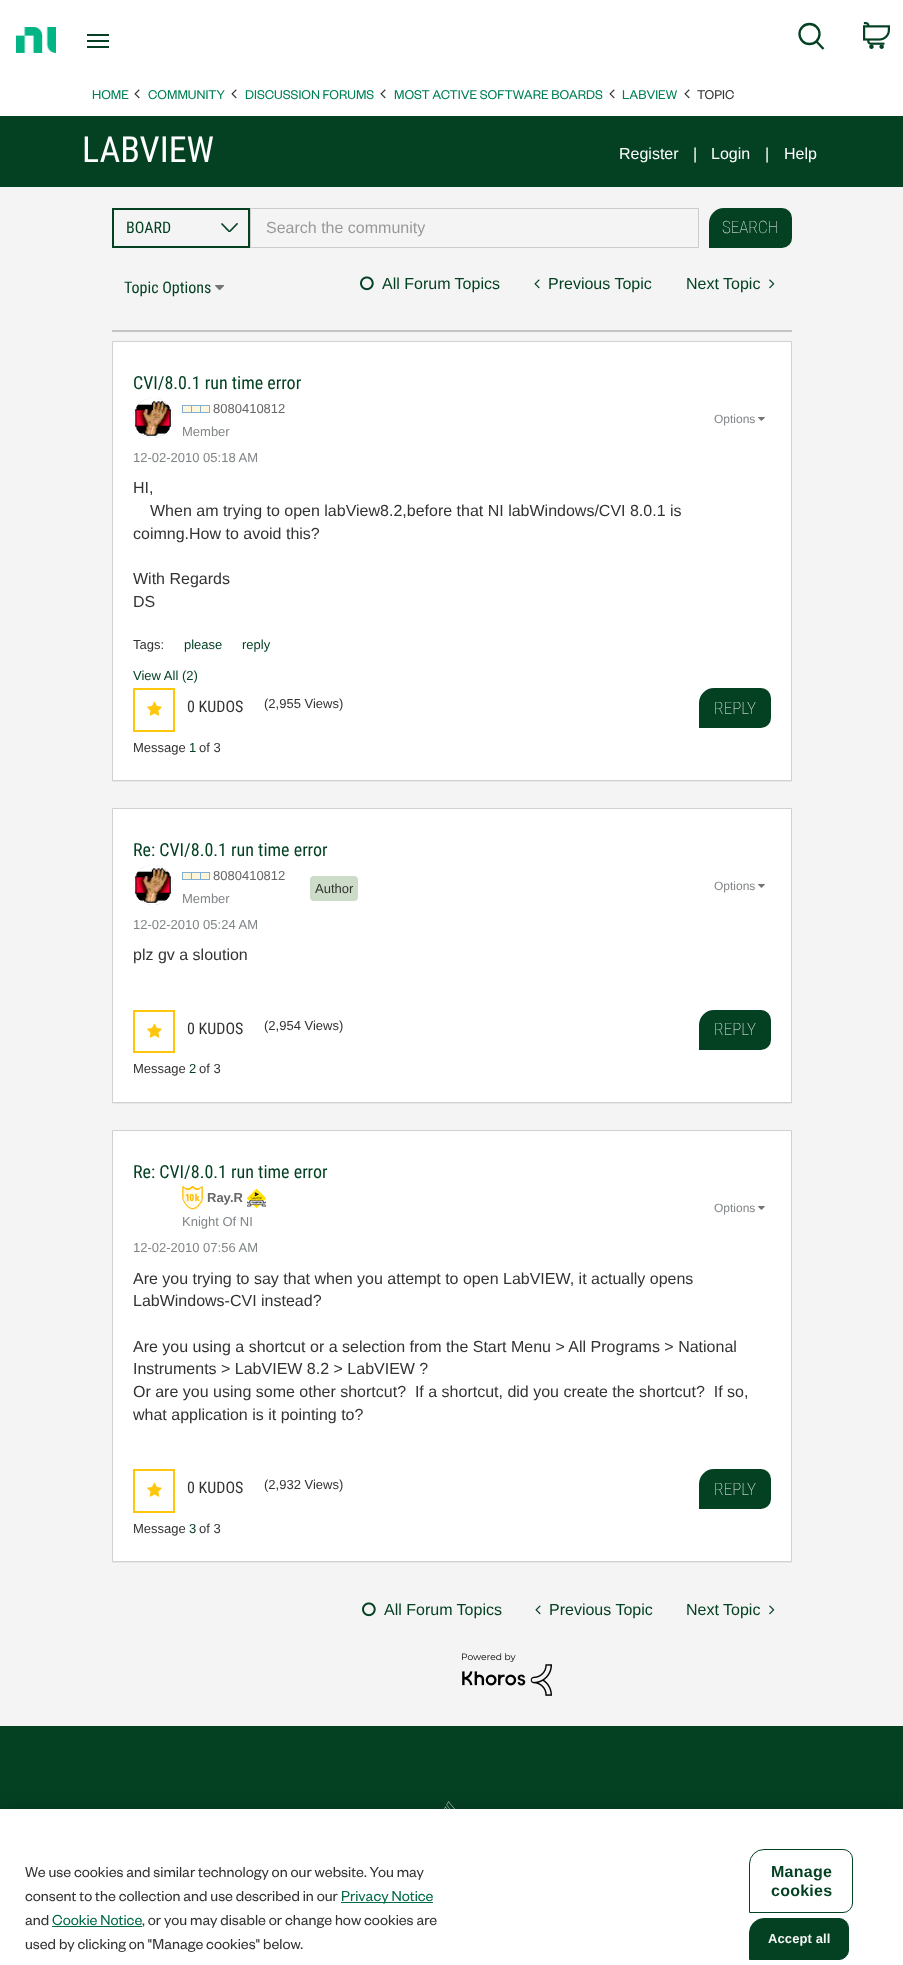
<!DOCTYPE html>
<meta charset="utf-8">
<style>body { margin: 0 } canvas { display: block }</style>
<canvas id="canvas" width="903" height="1965"></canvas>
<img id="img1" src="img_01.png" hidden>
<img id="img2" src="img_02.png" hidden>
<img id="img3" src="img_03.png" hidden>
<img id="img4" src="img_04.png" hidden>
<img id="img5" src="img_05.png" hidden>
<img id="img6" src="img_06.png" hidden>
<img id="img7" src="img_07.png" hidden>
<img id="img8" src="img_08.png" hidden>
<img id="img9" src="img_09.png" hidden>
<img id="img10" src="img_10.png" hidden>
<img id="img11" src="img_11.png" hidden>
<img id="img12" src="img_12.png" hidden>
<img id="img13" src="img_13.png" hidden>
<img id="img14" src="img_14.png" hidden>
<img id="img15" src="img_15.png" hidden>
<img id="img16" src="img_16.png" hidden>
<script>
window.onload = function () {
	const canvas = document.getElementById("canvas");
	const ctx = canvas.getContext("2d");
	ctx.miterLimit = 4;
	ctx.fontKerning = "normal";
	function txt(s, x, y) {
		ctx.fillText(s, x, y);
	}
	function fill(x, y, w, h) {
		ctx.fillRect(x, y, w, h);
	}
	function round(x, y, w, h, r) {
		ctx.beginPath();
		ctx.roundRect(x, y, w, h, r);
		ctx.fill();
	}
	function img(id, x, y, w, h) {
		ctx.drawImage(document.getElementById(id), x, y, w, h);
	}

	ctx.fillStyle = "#F4F4F4";
	fill(0, 0, 903, 1965);
	ctx.fillStyle = "#FFFFFF";
	fill(0, 0, 903, 116);
	img("img1", 16, 27, 40, 26);
	ctx.fillStyle = "#044123";
	fill(87, 34, 22, 2);
	fill(87, 40, 22, 2);
	fill(87, 46, 22, 2);
	ctx.beginPath();
	ctx.arc(809.5, 34, 10, 0, Math.PI * 2);
	ctx.strokeStyle = "#044123";
	ctx.lineWidth = 2.3;
	ctx.stroke();
	ctx.beginPath();
	ctx.moveTo(816.5, 41.5);
	ctx.lineTo(823.5, 49);
	ctx.stroke();
	img("img2", 863, 22, 27, 27);
	img("img3", 134, 89, 6, 10);
	img("img3", 231, 89, 6, 10);
	img("img3", 380, 89, 6, 10);
	img("img3", 609, 89, 6, 10);
	img("img3", 684, 89, 6, 10);
	fill(0, 116, 903, 71);
	img("img4", 221, 223, 17, 9);
	fill(112, 208, 139, 2);
	fill(248, 208, 2, 40);
	fill(112, 246, 139, 2);
	fill(112, 208, 2, 40);
	ctx.strokeStyle = "#CDCDCD";
	ctx.lineWidth = 1;
	ctx.strokeRect(250.5, 208.5, 448, 39);
	ctx.beginPath();
	ctx.roundRect(709, 208, 83, 40, [15, 10, 10, 0]);
	ctx.fill();
	img("img5", 215, 285, 10, 6);
	img("img6", 360, 276, 14, 15);
	img("img7", 534, 279, 6, 10);
	img("img8", 769, 279, 6, 10);
	ctx.fillStyle = "#C4C4C4";
	fill(112, 330, 680, 2);
	ctx.fillStyle = "rgba(0, 0, 0, 0.05)";
	ctx.filter = "blur(0.5px)";
	ctx.beginPath();
	ctx.rect(112, 342, 680, 440);
	ctx.fill();
	ctx.filter = "none";
	ctx.fillStyle = "#FFFFFF";
	ctx.beginPath();
	ctx.rect(112.5, 341.5, 679, 439);
	ctx.fill();
	ctx.strokeStyle = "#D1D1D1";
	ctx.stroke();
	ctx.save();
	ctx.beginPath();
	ctx.moveTo(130, 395);
	ctx.lineTo(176, 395);
	ctx.lineTo(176, 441);
	ctx.lineTo(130, 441);
	ctx.closePath();
	ctx.moveTo(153, 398);
	ctx.bezierCurveTo(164, 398, 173, 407, 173, 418);
	ctx.bezierCurveTo(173, 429, 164, 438, 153, 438);
	ctx.bezierCurveTo(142, 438, 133, 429, 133, 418);
	ctx.bezierCurveTo(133, 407, 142, 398, 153, 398);
	ctx.closePath();
	ctx.clip("evenodd");
	ctx.fillStyle = "#C4C4C4";
	ctx.filter = "blur(0.5px)";
	ctx.beginPath();
	ctx.roundRect(133, 398, 40, 40, 20);
	ctx.fill();
	ctx.filter = "none";
	ctx.restore();
	img("img9", 135, 401, 36, 35);
	img("img10", 182, 405, 28, 8);
	img("img11", 758, 417, 7, 4);
	ctx.strokeStyle = "#FFC60B";
	ctx.strokeRect(133.5, 688.5, 41, 43);
	ctx.strokeRect(134.5, 689.5, 39, 41);
	img("img12", 147, 701, 15, 15);
	ctx.fillStyle = "#044123";
	ctx.beginPath();
	ctx.roundRect(700, 689, 70, 38, [14, 9, 9, 0]);
	ctx.fill();
	ctx.strokeStyle = "#044123";
	ctx.lineWidth = 2;
	ctx.stroke();
	ctx.fillStyle = "rgba(0, 0, 0, 0.05)";
	ctx.filter = "blur(0.5px)";
	ctx.beginPath();
	ctx.rect(112, 809, 680, 295);
	ctx.fill();
	ctx.filter = "none";
	ctx.fillStyle = "#FFFFFF";
	ctx.beginPath();
	ctx.rect(112.5, 808.5, 679, 294);
	ctx.fill();
	ctx.strokeStyle = "#D1D1D1";
	ctx.lineWidth = 1;
	ctx.stroke();
	ctx.save();
	ctx.beginPath();
	ctx.moveTo(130, 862);
	ctx.lineTo(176, 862);
	ctx.lineTo(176, 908);
	ctx.lineTo(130, 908);
	ctx.closePath();
	ctx.moveTo(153, 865);
	ctx.bezierCurveTo(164, 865, 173, 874, 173, 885);
	ctx.bezierCurveTo(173, 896, 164, 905, 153, 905);
	ctx.bezierCurveTo(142, 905, 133, 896, 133, 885);
	ctx.bezierCurveTo(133, 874, 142, 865, 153, 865);
	ctx.closePath();
	ctx.clip("evenodd");
	ctx.fillStyle = "#C4C4C4";
	ctx.filter = "blur(0.5px)";
	ctx.beginPath();
	ctx.roundRect(133, 865, 40, 40, 20);
	ctx.fill();
	ctx.filter = "none";
	ctx.restore();
	img("img9", 135, 868, 36, 35);
	img("img10", 182, 872, 28, 8);
	ctx.fillStyle = "#CCDCC8";
	round(310, 876, 48, 25, 4);
	img("img11", 758, 884, 7, 4);
	ctx.strokeStyle = "#FFC60B";
	ctx.strokeRect(133.5, 1010.5, 41, 42);
	ctx.strokeRect(134.5, 1011.5, 39, 40);
	img("img12", 147, 1023, 15, 15);
	ctx.fillStyle = "#044123";
	ctx.beginPath();
	ctx.roundRect(700, 1011, 70, 38, [14, 9, 9, 0]);
	ctx.fill();
	ctx.strokeStyle = "#044123";
	ctx.lineWidth = 2;
	ctx.stroke();
	ctx.fillStyle = "rgba(0, 0, 0, 0.05)";
	ctx.filter = "blur(0.5px)";
	ctx.beginPath();
	ctx.rect(112, 1131, 680, 432);
	ctx.fill();
	ctx.filter = "none";
	ctx.fillStyle = "#FFFFFF";
	ctx.beginPath();
	ctx.rect(112.5, 1130.5, 679, 431);
	ctx.fill();
	ctx.strokeStyle = "#D1D1D1";
	ctx.lineWidth = 1;
	ctx.stroke();
	img("img13", 182, 1186, 22, 24);
	img("img14", 247, 1189, 19, 19);
	img("img11", 758, 1206, 7, 4);
	ctx.strokeStyle = "#FFC60B";
	ctx.strokeRect(133.5, 1469.5, 41, 43);
	ctx.strokeRect(134.5, 1470.5, 39, 41);
	img("img12", 147, 1482, 15, 15);
	ctx.fillStyle = "#044123";
	ctx.beginPath();
	ctx.roundRect(700, 1470, 70, 38, [14, 9, 9, 0]);
	ctx.fill();
	ctx.strokeStyle = "#044123";
	ctx.lineWidth = 2;
	ctx.stroke();
	img("img6", 362, 1602, 14, 15);
	img("img7", 535, 1605, 6, 10);
	img("img8", 769, 1605, 6, 10);
	img("img15", 462, 1653, 90, 43);
	fill(0, 1726, 903, 83);
	img("img16", 444, 1801, 11, 8);
	ctx.fillStyle = "rgba(0, 0, 0, 0.2)";
	ctx.filter = "blur(9px)";
	ctx.beginPath();
	ctx.rect(0, 1809, 903, 156);
	ctx.fill();
	ctx.filter = "none";
	ctx.fillStyle = "#FFFFFF";
	fill(0, 1809, 903, 156);
	ctx.fillStyle = "#006B46";
	fill(341, 1902, 92, 1);
	fill(52, 1926, 90, 1);
	ctx.beginPath();
	ctx.roundRect(749.5, 1849.5, 103, 63, [14.5, 9.5, 9.5, 0]);
	ctx.lineWidth = 1;
	ctx.stroke();
	ctx.fillStyle = "#044123";
	ctx.beginPath();
	ctx.roundRect(749.5, 1918.5, 99, 41, [14.5, 9.5, 9.5, 0]);
	ctx.fill();
	ctx.stroke();
	ctx.font = "14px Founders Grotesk";
	ctx.fillStyle = "#008053";
	txt("HOME", 92, 99);
	txt("COMMUNITY", 148, 99);
	txt("DISCUSSION FORUMS", 245, 99);
	txt("MOST ACTIVE SOFTWARE BOARDS", 394, 99);
	txt("LABVIEW", 622, 99);
	ctx.fillStyle = "#333333";
	txt("TOPIC", 697, 99);
	ctx.font = "36px Roboto Condensed";
	ctx.fillStyle = "#FFFFFF";
	txt("LABVIEW", 82, 162);
	ctx.font = "16px Liberation Sans";
	txt("Register", 619, 159);
	txt("|", 693, 159);
	txt("Login", 711, 159);
	txt("|", 765, 159);
	txt("Help", 784, 159);
	ctx.font = "16px Roboto Condensed";
	ctx.fillStyle = "#044123";
	txt("BOARD", 126, 233);
	ctx.font = "16px Liberation Sans";
	ctx.fillStyle = "#999999";
	txt("Search the community", 266, 233);
	ctx.font = "100 17px Roboto Condensed";
	ctx.fillStyle = "#F4F4F4";
	txt("SEARCH", 722, 233);
	ctx.font = "16px Roboto Condensed";
	ctx.fillStyle = "#044123";
	txt("Topic Options", 124, 293);
	ctx.font = "16px Liberation Sans";
	txt("All Forum Topics", 382, 289);
	txt("Previous Topic", 548, 289);
	txt("Next Topic", 686, 289);
	ctx.font = "18px Roboto Condensed";
	txt("CVI/8.0.1 run time error", 133, 389);
	ctx.font = "13px Liberation Sans";
	ctx.fillStyle = "#666666";
	txt("8080410812", 213, 413);
	ctx.fillStyle = "#808587";
	txt("Member", 182, 436);
	ctx.font = "12px Liberation Sans";
	txt("Options", 714, 423);
	ctx.font = "13px Liberation Sans";
	txt("12-02-2010 05:18 AM", 133, 462);
	ctx.font = "16px Liberation Sans";
	ctx.fillStyle = "#333333";
	txt("HI,", 133, 493);
	txt("When am trying to open labView8.2,before that NI labWindows/CVI 8.0.1 is", 150, 516);
	txt("coimng.How to avoid this?", 133, 539);
	txt("With Regards", 133, 584);
	txt("DS", 133, 607);
	ctx.font = "13px Liberation Sans";
	txt("Tags:", 133, 649);
	ctx.fillStyle = "#044123";
	txt("please", 184, 649);
	txt("reply", 242, 649);
	txt("View All (2)", 133, 680);
	ctx.font = "16px Roboto Condensed";
	ctx.fillStyle = "#333333";
	txt("0 KUDOS", 187, 712);
	ctx.font = "13px Liberation Sans";
	txt("(2,955 Views)", 264, 708);
	txt("Message", 133, 752);
	ctx.fillStyle = "#044123";
	txt("1", 189, 752);
	ctx.fillStyle = "#333333";
	txt("of 3", 199, 752);
	ctx.font = "100 17px Roboto Condensed";
	ctx.fillStyle = "#F4F4F4";
	txt("REPLY", 714, 714);
	ctx.font = "18px Roboto Condensed";
	ctx.fillStyle = "#044123";
	txt("Re: CVI/8.0.1 run time error", 133, 856);
	ctx.font = "13px Liberation Sans";
	ctx.fillStyle = "#666666";
	txt("8080410812", 213, 880);
	ctx.fillStyle = "#808587";
	txt("Member", 182, 903);
	ctx.fillStyle = "#333333";
	txt("Author", 315, 893);
	ctx.font = "12px Liberation Sans";
	ctx.fillStyle = "#808587";
	txt("Options", 714, 890);
	ctx.font = "13px Liberation Sans";
	txt("12-02-2010 05:24 AM", 133, 929);
	ctx.font = "16px Liberation Sans";
	ctx.fillStyle = "#333333";
	txt("plz gv a sloution", 133, 960);
	ctx.font = "16px Roboto Condensed";
	txt("0 KUDOS", 187, 1034);
	ctx.font = "13px Liberation Sans";
	txt("(2,954 Views)", 264, 1030);
	txt("Message", 133, 1073);
	ctx.fillStyle = "#044123";
	txt("2", 189, 1073);
	ctx.fillStyle = "#333333";
	txt("of 3", 199, 1073);
	ctx.font = "100 17px Roboto Condensed";
	ctx.fillStyle = "#F4F4F4";
	txt("REPLY", 714, 1035);
	ctx.font = "18px Roboto Condensed";
	ctx.fillStyle = "#044123";
	txt("Re: CVI/8.0.1 run time error", 133, 1178);
	ctx.font = "bold 13px Liberation Sans";
	ctx.fillStyle = "#666666";
	txt("Ray.R", 207, 1202);
	ctx.font = "13px Liberation Sans";
	ctx.fillStyle = "#808587";
	txt("Knight Of NI", 182, 1226);
	ctx.font = "12px Liberation Sans";
	txt("Options", 714, 1212);
	ctx.font = "13px Liberation Sans";
	txt("12-02-2010 07:56 AM", 133, 1252);
	ctx.font = "16px Liberation Sans";
	ctx.fillStyle = "#333333";
	txt("Are you trying to say that when you attempt to open LabVIEW, it actually opens", 133, 1284);
	txt("LabWindows-CVI instead?", 133, 1306);
	txt("Are you using a shortcut or a selection from the Start Menu > All Programs > National", 133, 1352);
	txt("Instruments > LabVIEW 8.2 > LabVIEW ?", 133, 1374);
	txt("Or are you using some other shortcut?  If a shortcut, did you create the shortcut?  If so,", 133, 1397);
	txt("what application is it pointing to?", 133, 1420);
	ctx.font = "16px Roboto Condensed";
	txt("0 KUDOS", 187, 1493);
	ctx.font = "13px Liberation Sans";
	txt("(2,932 Views)", 264, 1489);
	txt("Message", 133, 1533);
	ctx.fillStyle = "#044123";
	txt("3", 189, 1533);
	ctx.fillStyle = "#333333";
	txt("of 3", 199, 1533);
	ctx.font = "100 17px Roboto Condensed";
	ctx.fillStyle = "#F4F4F4";
	txt("REPLY", 714, 1495);
	ctx.font = "16px Liberation Sans";
	ctx.fillStyle = "#044123";
	txt("All Forum Topics", 384, 1615);
	txt("Previous Topic", 549, 1615);
	txt("Next Topic", 686, 1615);
	ctx.font = "16px Founders Grotesk";
	ctx.fillStyle = "#333333";
	txt("We use cookies and similar technology on our website. You may", 25, 1877);
	txt("consent to the collection and use described in our", 25, 1901);
	ctx.fillStyle = "#006B46";
	txt("Privacy Notice", 341, 1901);
	ctx.fillStyle = "#333333";
	txt("and", 25, 1925);
	ctx.fillStyle = "#006B46";
	txt("Cookie Notice", 52, 1925);
	ctx.fillStyle = "#333333";
	txt(", or you may disable or change how cookies are", 142, 1925);
	txt("used by clicking on \"Manage cookies\" below.", 25, 1949);
	ctx.letterSpacing = "0.25px";
	ctx.font = "bold 16px Liberation Sans";
	ctx.fillStyle = "#044123";
	txt("Manage", 771, 1877);
	txt("cookies", 771, 1896);
	ctx.letterSpacing = "0.1px";
	ctx.font = "bold 13px Liberation Sans";
	ctx.fillStyle = "#F4F4F4";
	txt("Accept all", 768, 1943);
};
</script>
